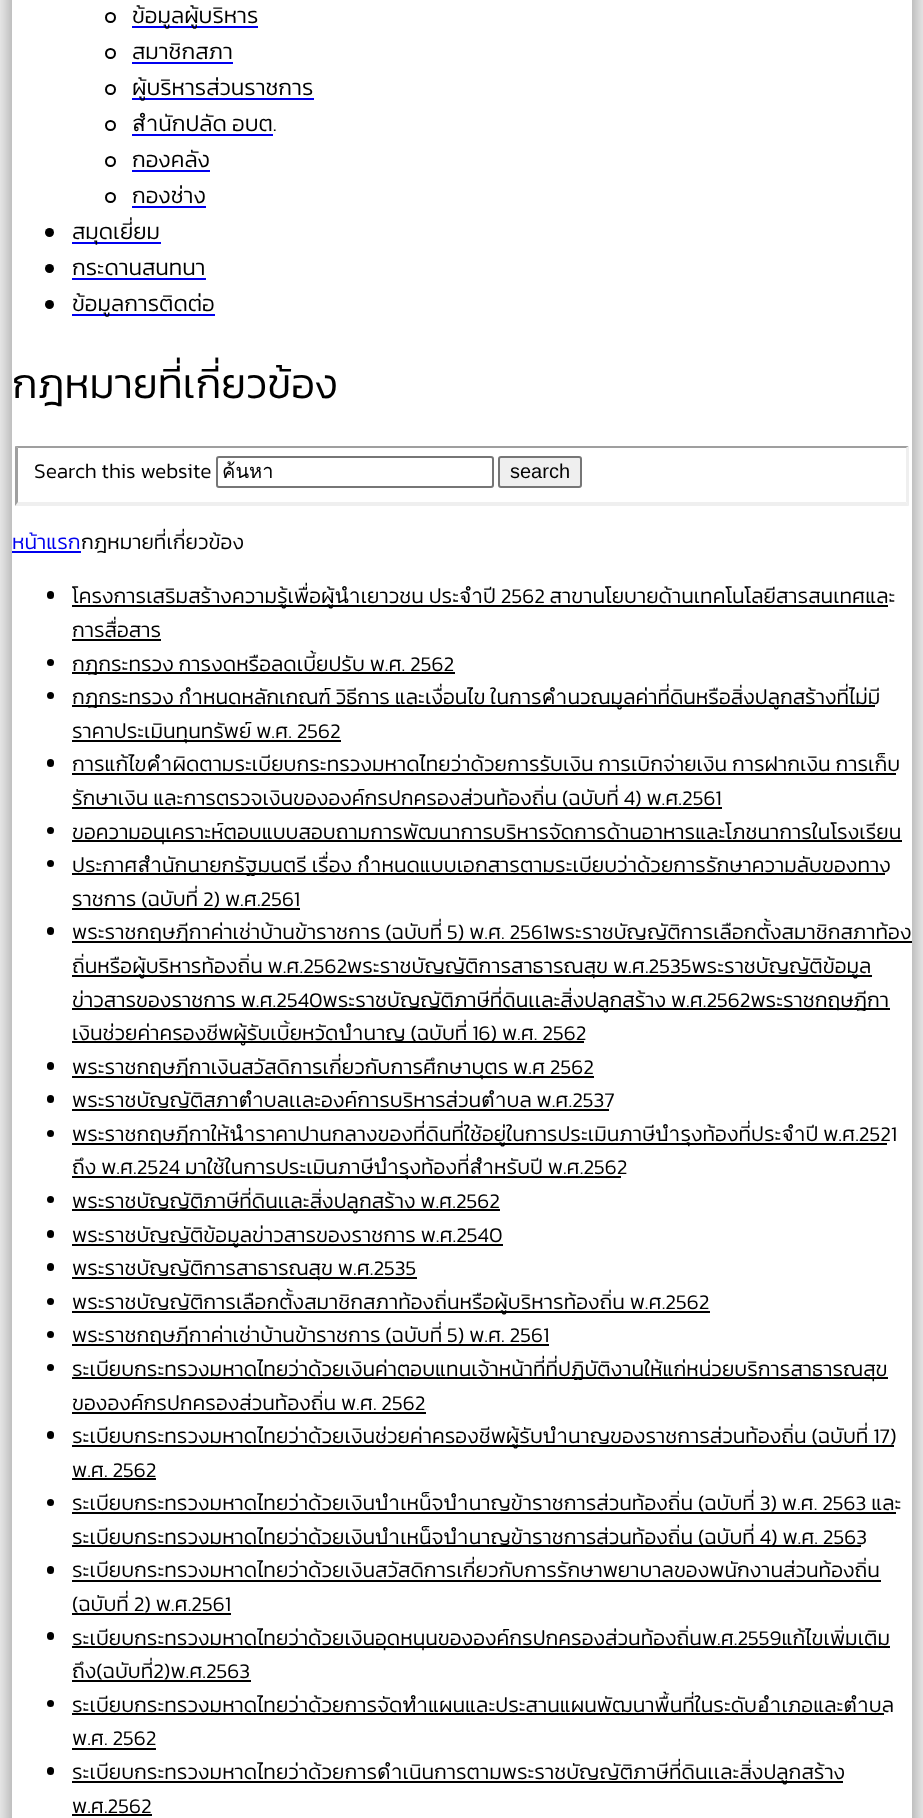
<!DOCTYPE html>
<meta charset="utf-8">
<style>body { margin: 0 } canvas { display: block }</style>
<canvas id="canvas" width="923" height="1818"></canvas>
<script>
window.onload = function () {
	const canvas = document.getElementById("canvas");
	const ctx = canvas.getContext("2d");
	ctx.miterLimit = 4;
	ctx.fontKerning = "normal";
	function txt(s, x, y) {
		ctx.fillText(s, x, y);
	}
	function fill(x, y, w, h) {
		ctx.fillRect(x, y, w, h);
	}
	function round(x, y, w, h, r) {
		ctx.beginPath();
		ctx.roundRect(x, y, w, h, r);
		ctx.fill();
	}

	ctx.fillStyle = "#FFFFFF";
	fill(0, 0, 923, 1818);
	ctx.save();
	ctx.beginPath();
	ctx.moveTo(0, 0);
	ctx.lineTo(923, 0);
	ctx.lineTo(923, 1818);
	ctx.lineTo(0, 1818);
	ctx.closePath();
	ctx.moveTo(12, -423);
	ctx.lineTo(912, -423);
	ctx.lineTo(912, 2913);
	ctx.lineTo(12, 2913);
	ctx.closePath();
	ctx.clip("evenodd");
	ctx.fillStyle = "rgba(0, 0, 0, 0.5)";
	ctx.filter = "blur(15px)";
	ctx.beginPath();
	ctx.rect(12, -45, 900, 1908);
	ctx.fill();
	ctx.filter = "none";
	ctx.restore();
	ctx.beginPath();
	ctx.arc(110.5, 17.5, 4.5, 0, Math.PI * 2);
	ctx.strokeStyle = "#000000";
	ctx.lineWidth = 2;
	ctx.stroke();
	ctx.fillStyle = "#0000EE";
	fill(132, 26, 126, 2);
	ctx.beginPath();
	ctx.arc(110.5, 53.5, 4.5, 0, Math.PI * 2);
	ctx.stroke();
	fill(132, 62, 101, 2);
	ctx.beginPath();
	ctx.arc(110.5, 89.5, 4.5, 0, Math.PI * 2);
	ctx.stroke();
	fill(132, 98, 182, 2);
	ctx.beginPath();
	ctx.arc(110.5, 125.5, 4.5, 0, Math.PI * 2);
	ctx.stroke();
	fill(132, 134, 141, 2);
	ctx.beginPath();
	ctx.arc(110.5, 161.5, 4.5, 0, Math.PI * 2);
	ctx.stroke();
	fill(132, 170, 78, 2);
	ctx.beginPath();
	ctx.arc(110.5, 197.5, 4.5, 0, Math.PI * 2);
	ctx.stroke();
	fill(132, 206, 74, 2);
	ctx.fillStyle = "#000000";
	ctx.beginPath();
	ctx.arc(49.5, 232.5, 4.5, 0, Math.PI * 2);
	ctx.fill();
	ctx.fillStyle = "#0000EE";
	fill(72, 242, 89, 2);
	ctx.fillStyle = "#000000";
	ctx.beginPath();
	ctx.arc(49.5, 268.5, 4.5, 0, Math.PI * 2);
	ctx.fill();
	ctx.fillStyle = "#0000EE";
	fill(72, 278, 134, 2);
	ctx.fillStyle = "#000000";
	ctx.beginPath();
	ctx.arc(49.5, 304.5, 4.5, 0, Math.PI * 2);
	ctx.fill();
	ctx.fillStyle = "#0000EE";
	fill(72, 314, 143, 2);
	ctx.fillStyle = "#9F9F9F";
	ctx.beginPath();
	ctx.moveTo(15, 446);
	ctx.lineTo(909, 446);
	ctx.lineTo(906, 448);
	ctx.lineTo(18, 448);
	ctx.closePath();
	ctx.fill();
	ctx.fillStyle = "#EFEFEF";
	ctx.beginPath();
	ctx.moveTo(909, 446);
	ctx.lineTo(909, 506);
	ctx.lineTo(906, 502);
	ctx.lineTo(906, 448);
	ctx.closePath();
	ctx.fill();
	ctx.beginPath();
	ctx.moveTo(909, 506);
	ctx.lineTo(15, 506);
	ctx.lineTo(18, 502);
	ctx.lineTo(906, 502);
	ctx.closePath();
	ctx.fill();
	ctx.fillStyle = "#9F9F9F";
	ctx.beginPath();
	ctx.moveTo(15, 506);
	ctx.lineTo(15, 446);
	ctx.lineTo(18, 448);
	ctx.lineTo(18, 502);
	ctx.closePath();
	ctx.fill();
	ctx.beginPath();
	ctx.roundRect(217, 457, 276, 30, 2);
	ctx.strokeStyle = "#767676";
	ctx.stroke();
	ctx.fillStyle = "#EFEFEF";
	ctx.beginPath();
	ctx.roundRect(499, 457, 82, 30, 2);
	ctx.fill();
	ctx.stroke();
	ctx.fillStyle = "#0000EE";
	fill(12, 551, 69, 2);
	ctx.fillStyle = "#000000";
	round(47, 591, 7, 8, 3.5);
	fill(72, 605, 816, 2);
	fill(72, 639, 89, 2);
	ctx.beginPath();
	ctx.arc(50.5, 662.5, 3.5, 0, Math.PI * 2);
	ctx.fill();
	fill(72, 672, 383, 2);
	ctx.beginPath();
	ctx.arc(50.5, 695.5, 3.5, 0, Math.PI * 2);
	ctx.fill();
	fill(72, 705, 803, 2);
	fill(72, 740, 269, 2);
	round(47, 759, 7, 8, 3.5);
	fill(72, 773, 824, 2);
	fill(72, 807, 650, 2);
	ctx.beginPath();
	ctx.arc(50.5, 830.5, 3.5, 0, Math.PI * 2);
	ctx.fill();
	fill(72, 840, 830, 2);
	ctx.beginPath();
	ctx.arc(50.5, 863.5, 3.5, 0, Math.PI * 2);
	ctx.fill();
	fill(72, 873, 813, 2);
	fill(72, 908, 228, 2);
	round(47, 927, 7, 8, 3.5);
	fill(72, 941, 840, 2);
	fill(72, 975, 800, 2);
	fill(72, 1008, 818, 2);
	fill(72, 1041, 512, 2);
	round(47, 1062, 7, 8, 3.5);
	fill(72, 1076, 522, 2);
	round(47, 1095, 7, 8, 3.5);
	fill(72, 1109, 537, 2);
	ctx.beginPath();
	ctx.arc(50.5, 1133.5, 3.5, 0, Math.PI * 2);
	ctx.fill();
	fill(72, 1143, 815, 2);
	fill(72, 1176, 549, 2);
	ctx.beginPath();
	ctx.arc(50.5, 1199.5, 3.5, 0, Math.PI * 2);
	ctx.fill();
	fill(72, 1209, 428, 2);
	round(47, 1230, 7, 8, 3.5);
	fill(72, 1244, 431, 2);
	round(47, 1263, 7, 8, 3.5);
	fill(72, 1277, 345, 2);
	ctx.beginPath();
	ctx.arc(50.5, 1301.5, 3.5, 0, Math.PI * 2);
	ctx.fill();
	fill(72, 1311, 638, 2);
	ctx.beginPath();
	ctx.arc(50.5, 1334.5, 3.5, 0, Math.PI * 2);
	ctx.fill();
	fill(72, 1344, 477, 2);
	ctx.beginPath();
	ctx.arc(50.5, 1367.5, 3.5, 0, Math.PI * 2);
	ctx.fill();
	fill(72, 1377, 816, 2);
	fill(72, 1412, 354, 2);
	round(47, 1431, 7, 8, 3.5);
	fill(72, 1445, 822, 2);
	fill(72, 1478, 84, 2);
	ctx.beginPath();
	ctx.arc(50.5, 1502.5, 3.5, 0, Math.PI * 2);
	ctx.fill();
	fill(72, 1512, 824, 2);
	fill(72, 1545, 789, 2);
	round(47, 1566, 7, 8, 3.5);
	fill(72, 1580, 809, 2);
	fill(72, 1613, 159, 2);
	round(47, 1632, 7, 8, 3.5);
	fill(72, 1646, 818, 2);
	fill(72, 1680, 179, 2);
	ctx.beginPath();
	ctx.arc(50.5, 1703.5, 3.5, 0, Math.PI * 2);
	ctx.fill();
	fill(72, 1713, 812, 2);
	fill(72, 1748, 84, 2);
	round(47, 1767, 7, 8, 3.5);
	fill(72, 1781, 771, 2);
	fill(72, 1814, 80, 2);
	ctx.font = "300 22.5px Kanit";
	txt("ข้อมูลผู้บริหาร", 132, 23);
	txt("สมาชิกสภา", 132, 59);
	txt("ผู้บริหารส่วนราชการ", 132, 95);
	txt("สำนักปลัด อบต.", 132, 131);
	txt("กองคลัง", 132, 167);
	txt("กองช่าง", 132, 203);
	txt("สมุดเยี่ยม", 72, 239);
	txt("กระดานสนทนา", 72, 275);
	txt("ข้อมูลการติดต่อ", 72, 311);
	ctx.font = "300 42px Kanit";
	txt("กฎหมายที่เกี่ยวข้อง", 12, 398);
	ctx.font = "300 21px Kanit";
	txt("Search this website", 34, 478);
	ctx.save();
	ctx.beginPath();
	ctx.rect(222, 459, 266, 26);
	ctx.clip();
	ctx.font = "20px Loma";
	txt("ค้นหา", 222, 478);
	ctx.restore();
	ctx.font = "20px Liberation Sans";
	txt("search", 510, 478);
	ctx.font = "300 21px Kanit";
	ctx.fillStyle = "#0000EE";
	txt("หน้าแรก", 12, 549);
	ctx.fillStyle = "#000000";
	txt("กฎหมายที่เกี่ยวข้อง", 81, 549);
	txt("โครงการเสริมสร้างความรู้เพื่อผู้นำเยาวชน ประจำปี 2562 สาขานโยบายด้านเทคโนโลยีสารสนเทศและ", 72, 603);
	txt("การสื่อสาร", 72, 637);
	txt("กฎกระทรวง การงดหรือลดเบี้ยปรับ พ.ศ. 2562", 72, 671);
	txt("กฎกระทรวง กำหนดหลักเกณฑ์ วิธีการ และเงื่อนไข ในการคำนวณมูลค่าที่ดินหรือสิ่งปลูกสร้างที่ไม่มี", 72, 704);
	txt("ราคาประเมินทุนทรัพย์ พ.ศ. 2562", 72, 738);
	txt("การแก้ไขคำผิดตามระเบียบกระทรวงมหาดไทยว่าด้วยการรับเงิน การเบิกจ่ายเงิน การฝากเงิน การเก็บ", 72, 771);
	txt("รักษาเงิน และการตรวจเงินขององค์กรปกครองส่วนท้องถิ่น (ฉบับที่ 4) พ.ศ.2561", 72, 805);
	txt("ขอความอนุเคราะห์ตอบแบบสอบถามการพัฒนาการบริหารจัดการด้านอาหารและโภชนาการในโรงเรียน", 72, 839);
	txt("ประกาศสำนักนายกรัฐมนตรี เรื่อง กำหนดแบบเอกสารตามระเบียบว่าด้วยการรักษาความลับของทาง", 72, 872);
	txt("ราชการ (ฉบับที่ 2) พ.ศ.2561", 72, 906);
	txt("พระราชกฤษฎีกาค่าเช่าบ้านข้าราชการ (ฉบับที่ 5) พ.ศ. 2561พระราชบัญญัติการเลือกตั้งสมาชิกสภาท้อง", 72, 939);
	txt("ถิ่นหรือผู้บริหารท้องถิ่น พ.ศ.2562พระราชบัญญัติการสาธารณสุข พ.ศ.2535พระราชบัญญัติข้อมูล", 72, 973);
	txt("ข่าวสารของราชการ พ.ศ.2540พระราชบัญญัติภาษีที่ดินเเละสิ่งปลูกสร้าง พ.ศ.2562พระราชกฤษฎีกา", 72, 1007);
	txt("เงินช่วยค่าครองชีพผู้รับเบิ้ยหวัดบำนาญ (ฉบับที่ 16) พ.ศ. 2562", 72, 1040);
	txt("พระราชกฤษฎีกาเงินสวัสดิการเกี่ยวกับการศึกษาบุตร พ.ศ 2562", 72, 1074);
	txt("พระราชบัญญัติสภาตำบลเเละองค์การบริหารส่วนตำบล พ.ศ.2537", 72, 1107);
	txt("พระราชกฤษฎีกาให้นำราคาปานกลางของที่ดินที่ใช้อยู่ในการประเมินภาษีบำรุงท้องที่ประจำปี พ.ศ.2521", 72, 1141);
	txt("ถึง พ.ศ.2524 มาใช้ในการประเมินภาษีบำรุงท้องที่สำหรับปี พ.ศ.2562", 72, 1174);
	txt("พระราชบัญญัติภาษีที่ดินเเละสิ่งปลูกสร้าง พ.ศ.2562", 72, 1208);
	txt("พระราชบัญญัติข้อมูลข่าวสารของราชการ พ.ศ.2540", 72, 1242);
	txt("พระราชบัญญัติการสาธารณสุข พ.ศ.2535", 72, 1275);
	txt("พระราชบัญญัติการเลือกตั้งสมาชิกสภาท้องถิ่นหรือผู้บริหารท้องถิ่น พ.ศ.2562", 72, 1309);
	txt("พระราชกฤษฎีกาค่าเช่าบ้านข้าราชการ (ฉบับที่ 5) พ.ศ. 2561", 72, 1342);
	txt("ระเบียบกระทรวงมหาดไทยว่าด้วยเงินค่าตอบแทนเจ้าหน้าที่ที่ปฏิบัติงานให้แก่หน่วยบริการสาธารณสุข", 72, 1376);
	txt("ขององค์กรปกครองส่วนท้องถิ่น พ.ศ. 2562", 72, 1410);
	txt("ระเบียบกระทรวงมหาดไทยว่าด้วยเงินช่วยค่าครองชีพผู้รับบำนาญของราชการส่วนท้องถิ่น (ฉบับที่ 17)", 72, 1443);
	txt("พ.ศ. 2562", 72, 1477);
	txt("ระเบียบกระทรวงมหาดไทยว่าด้วยเงินบำเหน็จบำนาญข้าราชการส่วนท้องถิ่น (ฉบับที่ 3) พ.ศ. 2563 และ", 72, 1510);
	txt("ระเบียบกระทรวงมหาดไทยว่าด้วยเงินบำเหน็จบำนาญข้าราชการส่วนท้องถิ่น (ฉบับที่ 4) พ.ศ. 2563", 72, 1544);
	txt("ระเบียบกระทรวงมหาดไทยว่าด้วยเงินสวัสดิการเกี่ยวกับการรักษาพยาบาลของพนักงานส่วนท้องถิ่น", 72, 1577);
	txt("(ฉบับที่ 2) พ.ศ.2561", 72, 1611);
	txt("ระเบียบกระทรวงมหาดไทยว่าด้วยเงินอุดหนุนขององค์กรปกครองส่วนท้องถิ่นพ.ศ.2559แก้ไขเพิ่มเติม", 72, 1645);
	txt("ถึง(ฉบับที่2)พ.ศ.2563", 72, 1678);
	txt("ระเบียบกระทรวงมหาดไทยว่าด้วยการจัดทำแผนและประสานแผนพัฒนาพื้นที่ในระดับอำเภอและตำบล", 72, 1712);
	txt("พ.ศ. 2562", 72, 1745);
	txt("ระเบียบกระทรวงมหาดไทยว่าด้วยการดำเนินการตามพระราชบัญญัติภาษีที่ดินเเละสิ่งปลูกสร้าง", 72, 1779);
	txt("พ.ศ.2562", 72, 1813);
};
</script>
